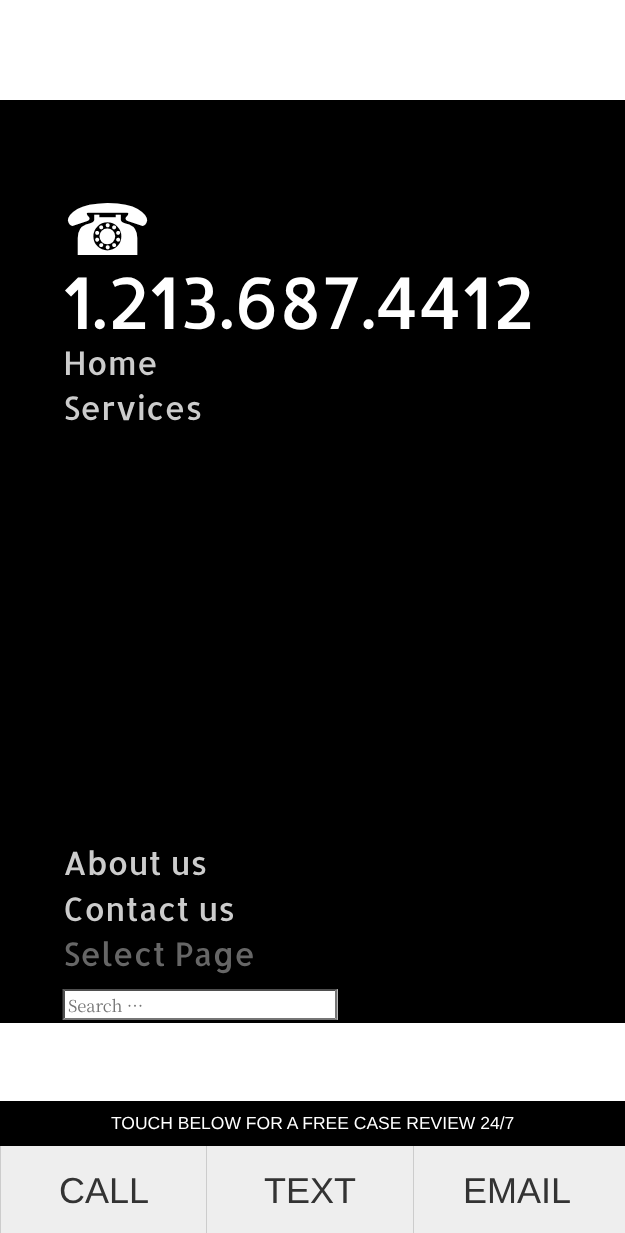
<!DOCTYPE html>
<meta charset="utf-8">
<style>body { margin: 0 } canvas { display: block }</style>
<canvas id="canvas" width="625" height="1233"></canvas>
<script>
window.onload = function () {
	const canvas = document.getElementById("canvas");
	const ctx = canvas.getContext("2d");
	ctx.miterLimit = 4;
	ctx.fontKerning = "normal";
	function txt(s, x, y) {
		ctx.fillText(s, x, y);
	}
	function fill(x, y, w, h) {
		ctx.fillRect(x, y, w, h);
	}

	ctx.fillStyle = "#FFFFFF";
	fill(0, 0, 625, 1233);
	ctx.fillStyle = "#000000";
	fill(0, 100, 625, 923);
	ctx.fillStyle = "#FFFFFF";
	fill(63, 989, 275, 31);
	ctx.fillStyle = "#4F4F4F";
	ctx.beginPath();
	ctx.moveTo(62, 989);
	ctx.lineTo(338, 989);
	ctx.lineTo(335, 991);
	ctx.lineTo(65, 991);
	ctx.closePath();
	ctx.fill();
	ctx.fillStyle = "#767676";
	ctx.beginPath();
	ctx.moveTo(337.5, 989);
	ctx.lineTo(337.5, 1020);
	ctx.lineTo(335, 1017.5);
	ctx.lineTo(335, 991);
	ctx.closePath();
	ctx.fill();
	ctx.beginPath();
	ctx.moveTo(338, 1020);
	ctx.lineTo(62, 1020);
	ctx.lineTo(65, 1018);
	ctx.lineTo(335, 1018);
	ctx.closePath();
	ctx.fill();
	ctx.fillStyle = "#4F4F4F";
	ctx.beginPath();
	ctx.moveTo(62.5, 1020);
	ctx.lineTo(62.5, 989);
	ctx.lineTo(65, 991);
	ctx.lineTo(65, 1017.5);
	ctx.closePath();
	ctx.fill();
	ctx.fillStyle = "#EEEEEE";
	fill(1, 1146, 624, 87);
	ctx.fillStyle = "#000000";
	fill(0, 1101, 625, 45);
	ctx.fillStyle = "#CCCCCC";
	fill(0, 1146, 1, 87);
	fill(206, 1146, 1, 87);
	fill(413, 1146, 1, 87);
	ctx.font = "71.5px DejaVu Sans";
	ctx.fillStyle = "#FFFFFF";
	txt("☎", 63, 255);
	ctx.font = "71.5px Allerta";
	txt("1.213.687.4412", 63, 329);
	ctx.font = "32.5px Allerta";
	ctx.fillStyle = "#CCCCCC";
	txt("Home", 63, 375);
	txt("Services", 63, 420);
	txt("About us", 63, 875);
	txt("Contact us", 63, 921);
	ctx.fillStyle = "#666666";
	txt("Select Page", 63, 966);
	ctx.font = "200 16.5px Noto Serif TC";
	ctx.fillStyle = "#757575";
	txt("Search …", 68, 1012);
	ctx.font = "17.5px Liberation Sans";
	ctx.fillStyle = "#FFFFFF";
	txt("TOUCH BELOW FOR A FREE CASE REVIEW 24/7", 111, 1129);
	ctx.font = "36px Liberation Sans";
	ctx.fillStyle = "#333333";
	txt("CALL", 59, 1203);
	txt("TEXT", 264, 1203);
	txt("EMAIL", 463, 1203);
};
</script>
